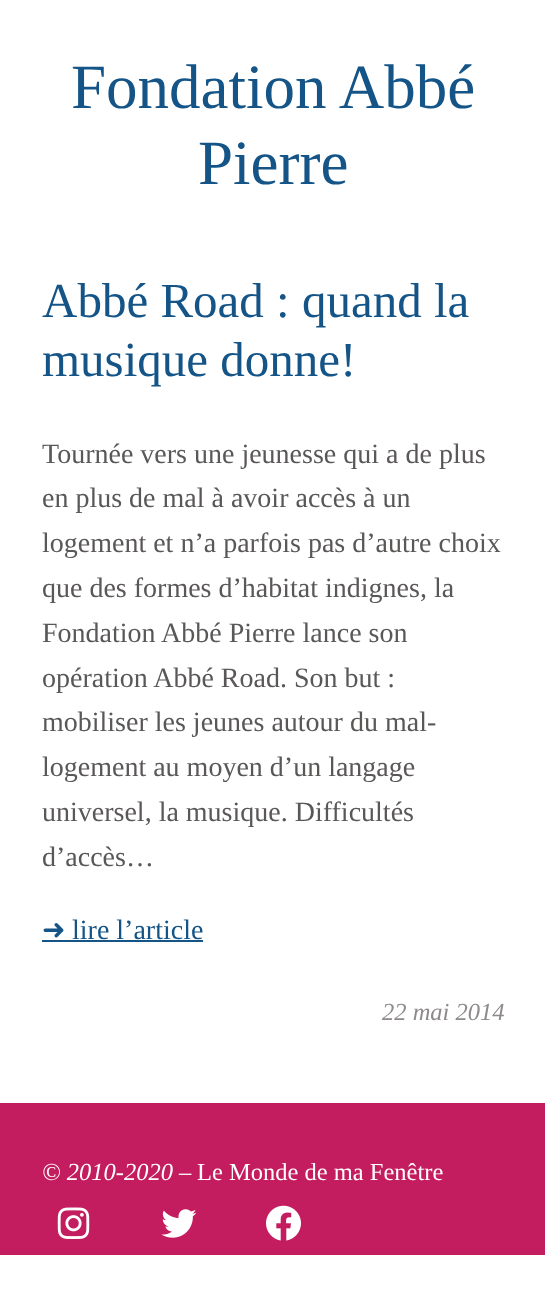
<!DOCTYPE html>
<meta charset="utf-8">
<style>body { margin: 0 } canvas { display: block }</style>
<canvas id="canvas" width="545" height="1303"></canvas>
<img id="img1" src="img_01.png" hidden>
<img id="img2" src="img_02.png" hidden>
<img id="img3" src="img_03.png" hidden>
<script>
window.onload = function () {
	const canvas = document.getElementById("canvas");
	const ctx = canvas.getContext("2d");
	ctx.miterLimit = 4;
	ctx.fontKerning = "normal";
	function txt(s, x, y) {
		ctx.fillText(s, x, y);
	}
	function fill(x, y, w, h) {
		ctx.fillRect(x, y, w, h);
	}
	function img(id, x, y, w, h) {
		ctx.drawImage(document.getElementById(id), x, y, w, h);
	}

	ctx.fillStyle = "#FFFFFF";
	fill(0, 0, 545, 1303);
	ctx.fillStyle = "#145487";
	fill(42, 940, 161, 2);
	ctx.fillStyle = "#C41D5F";
	fill(0, 1103, 545, 152);
	img("img1", 57, 1207, 33, 32);
	img("img2", 161, 1209, 36, 29);
	img("img3", 266, 1205, 35, 36);
	ctx.font = "63px Liberation Serif";
	ctx.fillStyle = "#145487";
	txt("Fondation Abbé", 71, 108);
	txt("Pierre", 198, 184);
	ctx.font = "49px Liberation Serif";
	txt("Abbé Road : quand la", 42, 317);
	txt("musique donne!", 42, 376);
	ctx.font = "28px Liberation Serif";
	ctx.fillStyle = "#5A5757";
	txt("Tournée vers une jeunesse qui a de plus", 42, 463);
	txt("en plus de mal à avoir accès à un", 42, 507);
	txt("logement et n’a parfois pas d’autre choix", 42, 552);
	txt("que des formes d’habitat indignes, la", 42, 597);
	txt("Fondation Abbé Pierre lance son", 42, 642);
	txt("opération Abbé Road. Son but :", 42, 687);
	txt("mobiliser les jeunes autour du mal-", 42, 731);
	txt("logement au moyen d’un langage", 42, 776);
	txt("universel, la musique. Difficultés", 42, 821);
	txt("d’accès…", 42, 866);
	ctx.font = "28px DejaVu Sans";
	ctx.fillStyle = "#145487";
	txt("➜", 42, 939);
	ctx.font = "28px Liberation Serif";
	txt("lire l’article", 72, 939);
	ctx.font = "italic 24.5px Liberation Serif";
	ctx.fillStyle = "#8E8A8A";
	txt("22 mai 2014", 382, 1020);
	ctx.fillStyle = "#FFFFFF";
	txt("© 2010-2020 –", 42, 1180);
	ctx.font = "24.5px Liberation Serif";
	txt("Le Monde de ma Fenêtre", 197, 1180);
};
</script>
